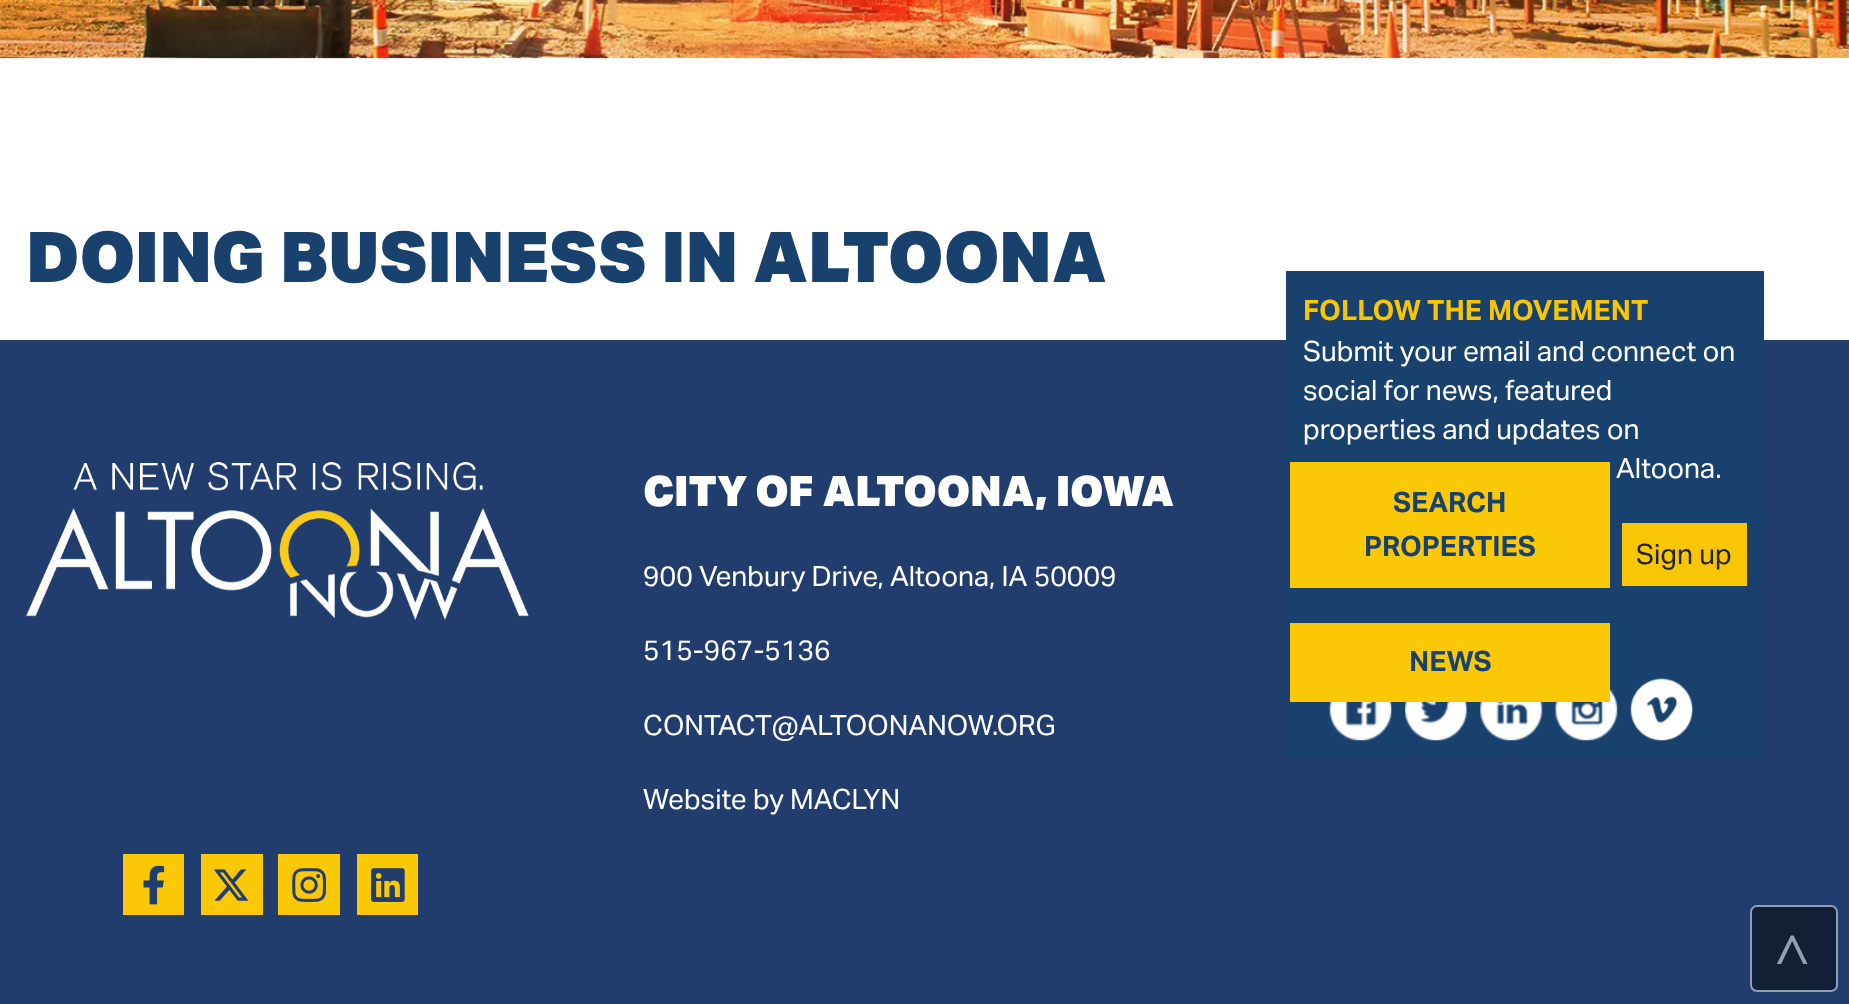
<!DOCTYPE html>
<meta charset="utf-8">
<style>body { margin: 0 } canvas { display: block }</style>
<canvas id="canvas" width="1849" height="1004"></canvas>
<img id="img1" src="img_01.png" hidden>
<img id="img2" src="img_02.png" hidden>
<img id="img3" src="img_03.png" hidden>
<img id="img4" src="img_04.png" hidden>
<img id="img5" src="img_05.png" hidden>
<img id="img6" src="img_06.png" hidden>
<img id="img7" src="img_07.png" hidden>
<img id="img8" src="img_08.png" hidden>
<img id="img9" src="img_09.png" hidden>
<img id="img10" src="img_10.png" hidden>
<img id="img11" src="img_11.png" hidden>
<script>
window.onload = function () {
	const canvas = document.getElementById("canvas");
	const ctx = canvas.getContext("2d");
	ctx.miterLimit = 4;
	ctx.fontKerning = "normal";
	function txt(s, x, y) {
		ctx.fillText(s, x, y);
	}
	function fill(x, y, w, h) {
		ctx.fillRect(x, y, w, h);
	}
	function img(id, x, y, w, h) {
		ctx.drawImage(document.getElementById(id), x, y, w, h);
	}

	ctx.fillStyle = "#FFFFFF";
	fill(0, 0, 1849, 1004);
	img("img1", 0, 0, 1849, 59);
	ctx.fillStyle = "#213D6E";
	fill(0, 340, 1849, 664);
	ctx.fillStyle = "#18416E";
	fill(1286, 271, 478, 487);
	ctx.fillStyle = "#F8C603";
	fill(1622, 523, 125, 63);
	img("img2", 1329, 702, 63, 39);
	img("img3", 1405, 702, 63, 39);
	img("img4", 1480, 702, 63, 39);
	img("img5", 1555, 688, 63, 53);
	img("img6", 1630, 678, 63, 63);
	img("img7", 26, 462, 503, 158);
	ctx.fillStyle = "#FAC805";
	fill(1290, 462, 320, 126);
	fill(1290, 623, 320, 79);
	fill(123, 854, 61, 61);
	img("img8", 143, 865, 22, 40);
	fill(201, 854, 62, 61);
	img("img9", 213, 869, 36, 32);
	fill(278, 854, 62, 61);
	img("img10", 292, 868, 34, 34);
	fill(357, 854, 61, 61);
	img("img11", 371, 868, 34, 34);
	ctx.fillStyle = "#111F37";
	ctx.beginPath();
	ctx.roundRect(1751, 906, 86, 85, 6);
	ctx.fill();
	ctx.strokeStyle = "#909EB7";
	ctx.lineWidth = 2;
	ctx.stroke();
	ctx.font = "900 70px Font";
	ctx.fillStyle = "#18416E";
	txt("DOING BUSINESS IN ALTOONA", 26, 282);
	ctx.font = "bold 28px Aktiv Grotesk";
	ctx.fillStyle = "#F8C603";
	txt("FOLLOW THE MOVEMENT", 1303, 320);
	ctx.font = "28px Aktiv Grotesk";
	ctx.fillStyle = "#FFFFFF";
	txt("Submit your email and connect on", 1303, 361);
	txt("social for news, featured", 1303, 400);
	txt("properties and updates on", 1303, 439);
	txt("Altoona.", 1616, 478);
	ctx.fillStyle = "#222222";
	txt("Sign up", 1636, 564);
	ctx.font = "900 42px Font";
	ctx.fillStyle = "#FFFFFF";
	txt("CITY OF ALTOONA, IOWA", 643, 506);
	ctx.font = "28px Aktiv Grotesk";
	txt("900 Venbury Drive, Altoona, IA 50009", 643, 586);
	txt("515-967-5136", 643, 660);
	txt("CONTACT@ALTOONANOW.ORG", 643, 735);
	txt("Website by MACLYN", 643, 809);
	ctx.font = "bold 28px Aktiv Grotesk";
	ctx.fillStyle = "#18416E";
	txt("SEARCH", 1393, 512);
	txt("PROPERTIES", 1364, 556);
	txt("NEWS", 1409, 671);
	ctx.font = "bold 61px Liberation Serif";
	ctx.fillStyle = "#909EB7";
	txt("˄", 1775, 970);
};
</script>
